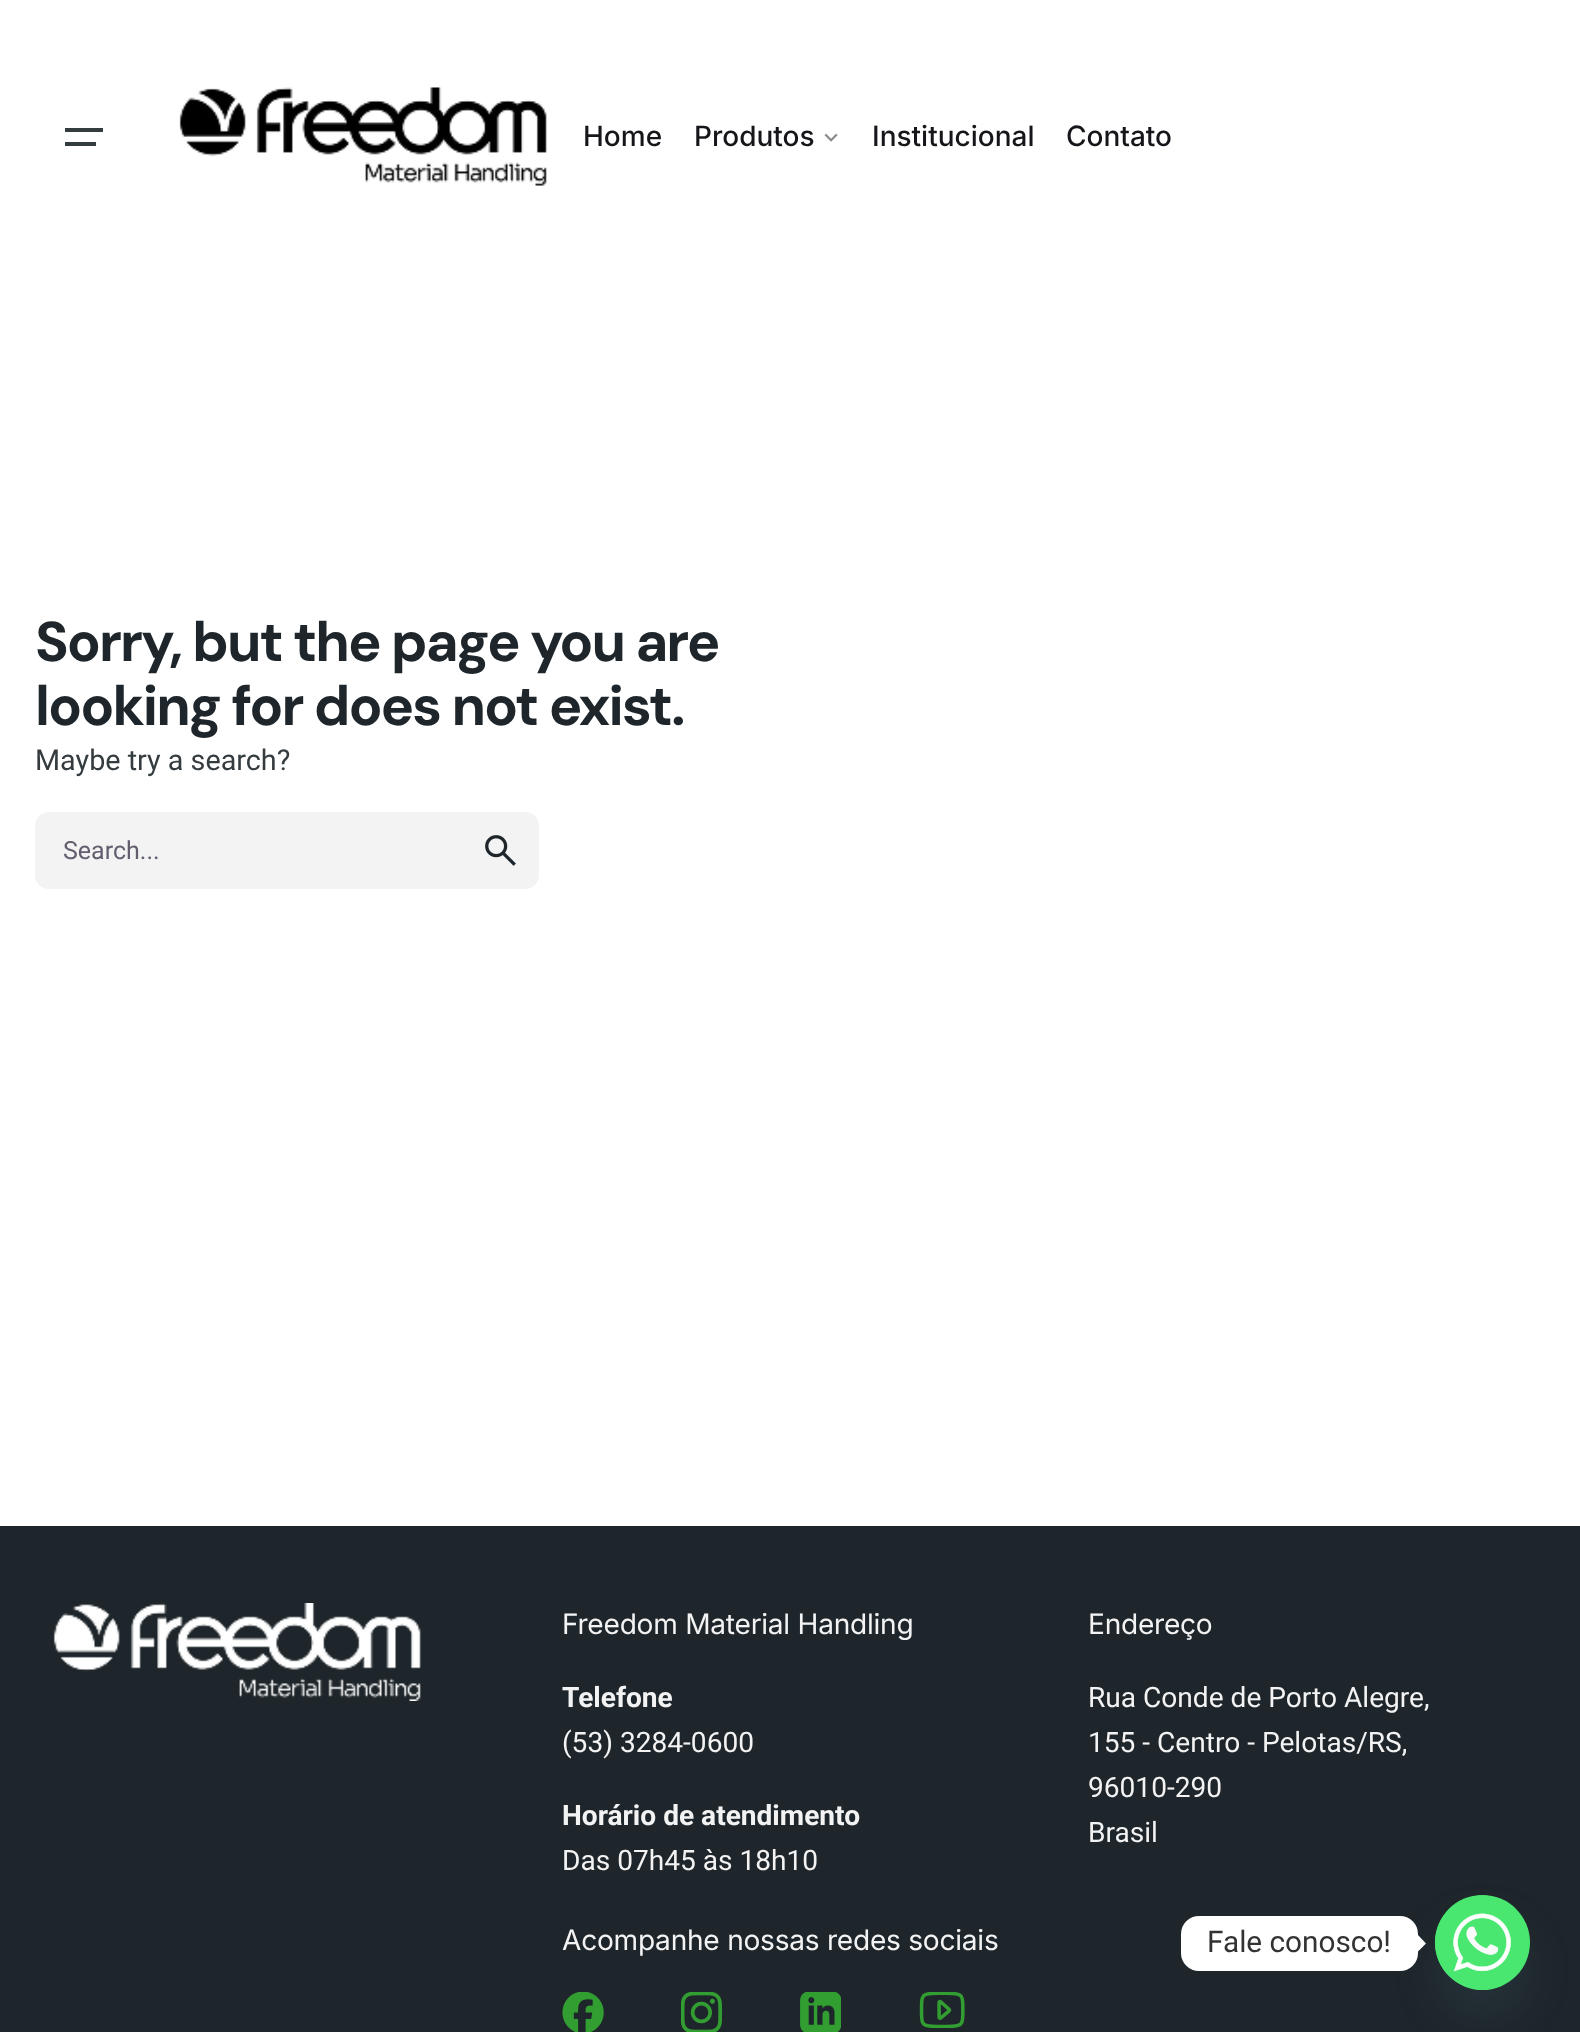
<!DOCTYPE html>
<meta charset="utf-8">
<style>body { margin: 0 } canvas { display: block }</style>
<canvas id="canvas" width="1580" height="2032"></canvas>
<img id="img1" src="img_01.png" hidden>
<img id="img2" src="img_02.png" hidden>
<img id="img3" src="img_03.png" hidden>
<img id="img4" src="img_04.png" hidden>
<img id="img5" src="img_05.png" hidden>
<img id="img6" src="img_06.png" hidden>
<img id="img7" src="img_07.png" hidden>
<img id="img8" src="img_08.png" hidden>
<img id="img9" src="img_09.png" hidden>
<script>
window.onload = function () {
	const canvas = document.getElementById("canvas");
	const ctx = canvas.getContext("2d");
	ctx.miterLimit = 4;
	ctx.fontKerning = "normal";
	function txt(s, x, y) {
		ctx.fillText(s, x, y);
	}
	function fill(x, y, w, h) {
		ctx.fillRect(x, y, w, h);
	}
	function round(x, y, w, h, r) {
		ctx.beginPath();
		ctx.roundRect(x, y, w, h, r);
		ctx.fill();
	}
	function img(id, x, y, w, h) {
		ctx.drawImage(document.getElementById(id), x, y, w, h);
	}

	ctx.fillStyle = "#FFFFFF";
	fill(0, 0, 1580, 2032);
	ctx.fillStyle = "#353C40";
	fill(65, 128, 38, 4);
	fill(65, 142, 31, 4);
	img("img1", 179, 87, 368, 99);
	img("img2", 824, 133, 14, 9);
	ctx.fillStyle = "#F3F3F4";
	round(35, 812, 504, 77, 14);
	img("img3", 485, 835, 31, 31);
	ctx.fillStyle = "#1E262B";
	fill(0, 1526, 1580, 506);
	img("img4", 53, 1603, 368, 98);
	img("img5", 562, 1992, 42, 40);
	img("img6", 681, 1992, 42, 40);
	img("img7", 800, 1992, 41, 40);
	img("img8", 919, 1992, 46, 36);
	ctx.fillStyle = "rgba(73, 104, 126, 0.16)";
	ctx.filter = "blur(21px)";
	ctx.beginPath();
	ctx.roundRect(1435, 1923, 95, 95, 47.5);
	ctx.fill();
	ctx.filter = "none";
	ctx.fillStyle = "#FFFFFF";
	round(1181, 1916, 237, 55, 18);
	ctx.beginPath();
	ctx.moveTo(1417.5, 1952);
	ctx.lineTo(1417.5, 1934.5);
	ctx.lineTo(1426, 1943.5);
	ctx.closePath();
	ctx.fill();
	ctx.fillStyle = "#49E670";
	ctx.beginPath();
	ctx.arc(1482.5, 1942.5, 47.5, 0, Math.PI * 2);
	ctx.fill();
	img("img9", 1435, 1895, 76, 95);
	ctx.font = "500 28px Inter";
	ctx.fillStyle = "#161519";
	txt("Home", 583, 146);
	txt("Produtos", 694, 146);
	txt("Institucional", 872, 146);
	txt("Contato", 1066, 146);
	ctx.letterSpacing = "-1.95px";
	ctx.font = "bold 56px DM Sans";
	ctx.fillStyle = "#1E262B";
	txt("Sorry, but the page you are", 35, 661);
	txt("looking for does not exist.", 35, 725);
	ctx.letterSpacing = "0px";
	ctx.font = "28.75px Roboto";
	ctx.fillStyle = "#353C40";
	txt("Maybe try a search?", 35, 770);
	ctx.font = "25px Roboto";
	ctx.fillStyle = "#635D6E";
	txt("Search...", 63, 859);
	ctx.letterSpacing = "-0.25px";
	ctx.font = "28.1px Inter";
	ctx.fillStyle = "#F3F3F3";
	txt("Freedom Material Handling", 562, 1634);
	ctx.letterSpacing = "0px";
	ctx.font = "bold 28.1px Roboto";
	txt("Telefone", 562, 1707);
	ctx.font = "28.1px Roboto";
	txt("(53) 3284-0600", 562, 1752);
	ctx.font = "bold 28.1px Roboto";
	txt("Horário de atendimento", 562, 1825);
	ctx.font = "28.1px Roboto";
	txt("Das 07h45 às 18h10", 562, 1870);
	ctx.letterSpacing = "-0.25px";
	ctx.font = "28.1px Inter";
	txt("Acompanhe nossas redes sociais", 562, 1950);
	txt("Endereço", 1088, 1634);
	ctx.letterSpacing = "0px";
	ctx.font = "28.1px Roboto";
	txt("Rua Conde de Porto Alegre,", 1088, 1707);
	txt("155 - Centro - Pelotas/RS,", 1088, 1752);
	txt("96010-290", 1088, 1797);
	txt("Brasil", 1088, 1842);
	ctx.font = "29.75px Roboto";
	ctx.fillStyle = "#333333";
	txt("Fale conosco!", 1207, 1952);
};
</script>
